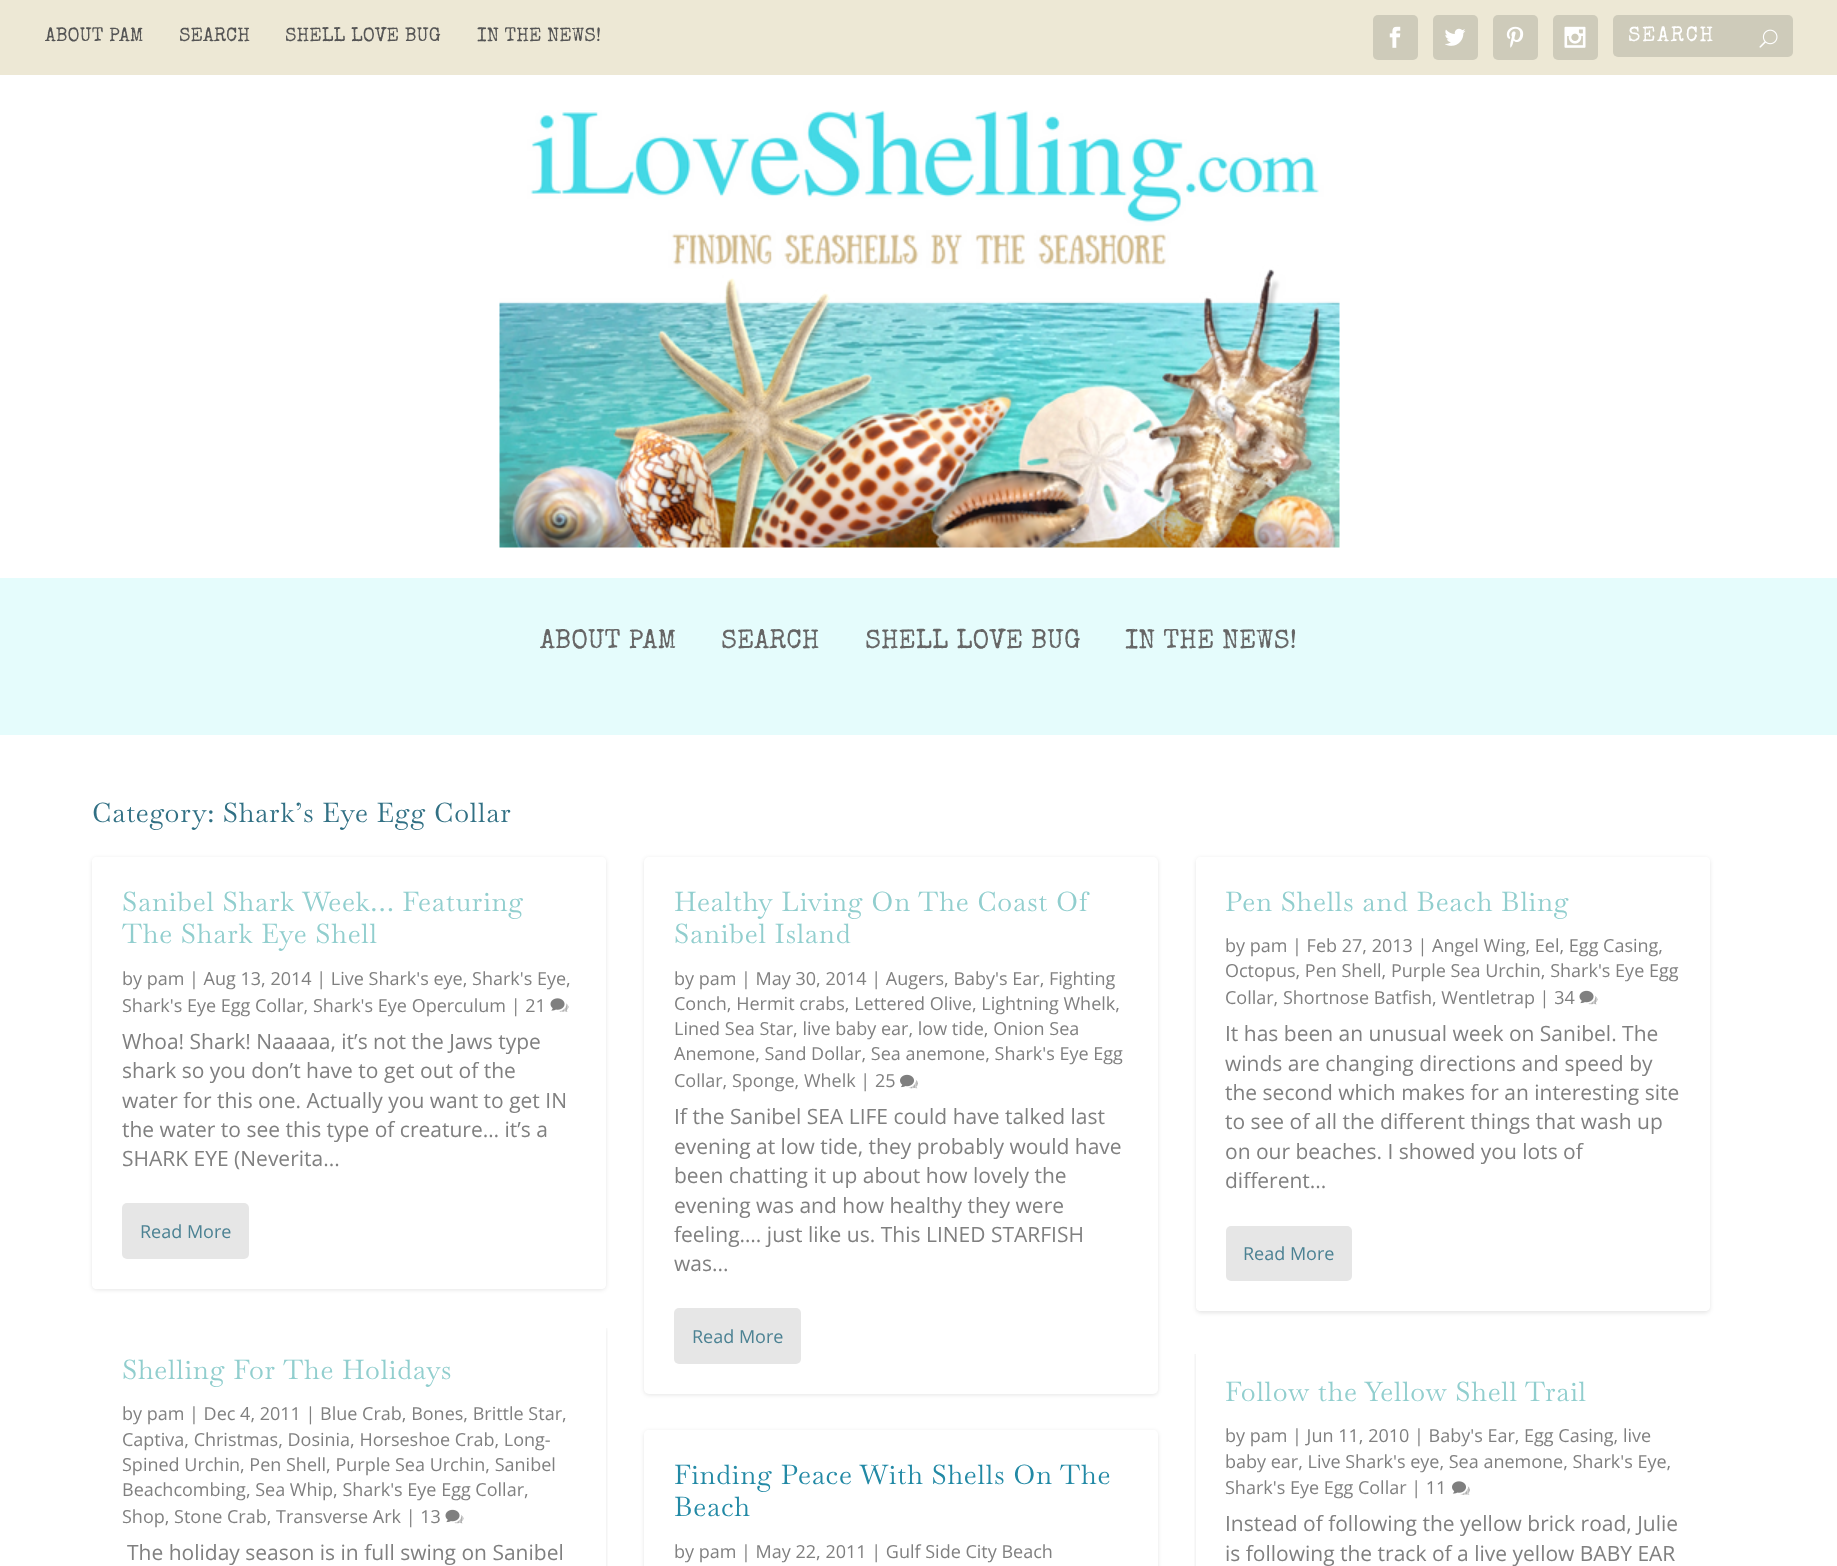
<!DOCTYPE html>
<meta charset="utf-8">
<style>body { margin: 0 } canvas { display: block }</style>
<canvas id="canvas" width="1837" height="1566"></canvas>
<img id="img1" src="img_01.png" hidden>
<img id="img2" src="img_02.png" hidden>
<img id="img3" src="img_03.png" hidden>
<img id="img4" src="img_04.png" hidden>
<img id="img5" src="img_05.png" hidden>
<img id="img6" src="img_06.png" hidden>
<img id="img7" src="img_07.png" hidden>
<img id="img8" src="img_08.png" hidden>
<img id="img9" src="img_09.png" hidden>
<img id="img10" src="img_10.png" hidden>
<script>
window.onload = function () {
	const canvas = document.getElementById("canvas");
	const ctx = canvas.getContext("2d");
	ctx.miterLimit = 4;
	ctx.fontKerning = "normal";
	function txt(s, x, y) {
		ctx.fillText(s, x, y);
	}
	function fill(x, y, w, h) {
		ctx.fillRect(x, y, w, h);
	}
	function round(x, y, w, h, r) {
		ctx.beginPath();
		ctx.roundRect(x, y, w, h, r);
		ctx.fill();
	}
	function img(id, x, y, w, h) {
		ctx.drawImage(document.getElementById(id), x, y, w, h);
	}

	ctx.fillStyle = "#FFFFFF";
	fill(0, 0, 1837, 1566);
	ctx.fillStyle = "#EDE8D5";
	fill(0, 0, 1837, 75);
	ctx.fillStyle = "#CECBBA";
	round(1373, 15, 45, 45, 5);
	img("img1", 1389, 26, 12, 22);
	round(1433, 15, 45, 45, 5);
	img("img2", 1445, 28, 21, 18);
	round(1493, 15, 45, 45, 5);
	img("img3", 1506, 26, 18, 22);
	round(1553, 15, 45, 45, 5);
	img("img4", 1564, 26, 22, 22);
	round(1613, 15, 180, 42, 5);
	img("img5", 1759, 29, 19, 19);
	ctx.fillStyle = "#E5FCFC";
	fill(0, 578, 1837, 157);
	img("img6", 499, 110, 841, 438);
	ctx.save();
	ctx.beginPath();
	ctx.moveTo(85, 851);
	ctx.lineTo(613, 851);
	ctx.lineTo(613, 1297);
	ctx.lineTo(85, 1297);
	ctx.closePath();
	ctx.moveTo(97, 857);
	ctx.lineTo(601, 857);
	ctx.bezierCurveTo(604, 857, 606, 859, 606, 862);
	ctx.lineTo(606, 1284);
	ctx.bezierCurveTo(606, 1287, 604, 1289, 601, 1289);
	ctx.lineTo(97, 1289);
	ctx.bezierCurveTo(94, 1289, 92, 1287, 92, 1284);
	ctx.lineTo(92, 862);
	ctx.bezierCurveTo(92, 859, 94, 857, 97, 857);
	ctx.closePath();
	ctx.clip("evenodd");
	ctx.fillStyle = "rgba(0, 0, 0, 0.1)";
	ctx.filter = "blur(2px)";
	ctx.beginPath();
	ctx.roundRect(92, 858, 514, 432, 5);
	ctx.fill();
	ctx.filter = "none";
	ctx.restore();
	ctx.fillStyle = "#FFFFFF";
	round(92, 857, 514, 432, 5);
	img("img7", 550, 998, 19, 14);
	ctx.fillStyle = "#E6E6E6";
	round(122, 1203, 127, 56, 5);
	ctx.save();
	ctx.beginPath();
	ctx.rect(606, 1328, 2, 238);
	ctx.clip();
	ctx.fillStyle = "rgba(0, 0, 0, 0.1)";
	ctx.filter = "blur(2px)";
	ctx.beginPath();
	ctx.roundRect(92, 1326, 514, 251, 5);
	ctx.fill();
	ctx.filter = "none";
	ctx.restore();
	img("img8", 445, 1509, 19, 15);
	ctx.fillStyle = "rgba(0, 0, 0, 0.1)";
	ctx.filter = "blur(2px)";
	ctx.beginPath();
	ctx.roundRect(644, 858, 514, 537, 5);
	ctx.fill();
	ctx.filter = "none";
	ctx.fillStyle = "#FFFFFF";
	round(644, 857, 514, 537, 5);
	img("img9", 900, 1074, 18, 15);
	ctx.fillStyle = "#E6E6E6";
	round(674, 1308, 127, 56, 5);
	ctx.save();
	ctx.beginPath();
	ctx.moveTo(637, 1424);
	ctx.lineTo(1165, 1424);
	ctx.lineTo(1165, 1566);
	ctx.lineTo(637, 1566);
	ctx.closePath();
	ctx.moveTo(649, 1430);
	ctx.lineTo(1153, 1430);
	ctx.bezierCurveTo(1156, 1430, 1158, 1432, 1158, 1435);
	ctx.lineTo(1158, 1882);
	ctx.bezierCurveTo(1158, 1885, 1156, 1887, 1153, 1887);
	ctx.lineTo(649, 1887);
	ctx.bezierCurveTo(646, 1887, 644, 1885, 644, 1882);
	ctx.lineTo(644, 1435);
	ctx.bezierCurveTo(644, 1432, 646, 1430, 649, 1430);
	ctx.closePath();
	ctx.clip("evenodd");
	ctx.fillStyle = "rgba(0, 0, 0, 0.1)";
	ctx.filter = "blur(2px)";
	ctx.beginPath();
	ctx.roundRect(644, 1431, 514, 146, 5);
	ctx.fill();
	ctx.filter = "none";
	ctx.restore();
	ctx.save();
	ctx.beginPath();
	ctx.moveTo(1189, 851);
	ctx.lineTo(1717, 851);
	ctx.lineTo(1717, 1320);
	ctx.lineTo(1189, 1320);
	ctx.closePath();
	ctx.moveTo(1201, 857);
	ctx.lineTo(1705, 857);
	ctx.bezierCurveTo(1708, 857, 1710, 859, 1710, 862);
	ctx.lineTo(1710, 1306);
	ctx.bezierCurveTo(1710, 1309, 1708, 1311, 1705, 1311);
	ctx.lineTo(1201, 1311);
	ctx.bezierCurveTo(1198, 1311, 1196, 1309, 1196, 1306);
	ctx.lineTo(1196, 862);
	ctx.bezierCurveTo(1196, 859, 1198, 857, 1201, 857);
	ctx.closePath();
	ctx.clip("evenodd");
	ctx.fillStyle = "rgba(0, 0, 0, 0.1)";
	ctx.filter = "blur(2px)";
	ctx.beginPath();
	ctx.roundRect(1196, 858, 514, 455, 5);
	ctx.fill();
	ctx.filter = "none";
	ctx.restore();
	ctx.fillStyle = "#FFFFFF";
	round(1196, 857, 514, 454, 5);
	img("img8", 1579, 990, 19, 15);
	ctx.fillStyle = "#E6E6E6";
	round(1226, 1226, 126, 55, 5);
	ctx.save();
	ctx.beginPath();
	ctx.rect(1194, 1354, 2, 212);
	ctx.clip();
	ctx.fillStyle = "rgba(0, 0, 0, 0.1)";
	ctx.filter = "blur(2px)";
	ctx.beginPath();
	ctx.roundRect(1196, 1349, 514, 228, 5);
	ctx.fill();
	ctx.filter = "none";
	ctx.restore();
	img("img10", 1452, 1481, 18, 14);
	ctx.font = "19.5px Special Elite";
	ctx.fillStyle = "#555555";
	txt("ABOUT PAM", 45, 41);
	txt("SEARCH", 179, 41);
	txt("SHELL LOVE BUG", 285, 41);
	txt("IN THE NEWS!", 477, 41);
	ctx.letterSpacing = "1.75px";
	ctx.font = "21px Special Elite";
	ctx.fillStyle = "#FFFFFF";
	txt("SEARCH", 1628, 41);
	ctx.letterSpacing = "0px";
	ctx.font = "27px Special Elite";
	ctx.fillStyle = "#666666";
	txt("ABOUT PAM", 540, 648);
	txt("SEARCH", 721, 648);
	txt("SHELL LOVE BUG", 865, 648);
	txt("IN THE NEWS!", 1125, 648);
	ctx.letterSpacing = "0.75px";
	ctx.font = "27px Baskervville";
	ctx.fillStyle = "#317084";
	txt("Category: Shark’s Eye Egg Collar", 92, 822);
	ctx.fillStyle = "#91CECE";
	txt("Sanibel Shark Week… Featuring", 122, 911);
	txt("The Shark Eye Shell", 122, 943);
	ctx.letterSpacing = "0px";
	ctx.font = "18px Open Sans";
	ctx.fillStyle = "#808080";
	txt("by pam | Aug 13, 2014 | Live Shark's eye, Shark's Eye,", 122, 985);
	txt("Shark's Eye Egg Collar, Shark's Eye Operculum | 21", 122, 1012);
	ctx.font = "21px Open Sans";
	txt("Whoa! Shark! Naaaaa, it’s not the Jaws type", 122, 1049);
	txt("shark so you don’t have to get out of the", 122, 1078);
	txt("water for this one. Actually you want to get IN", 122, 1108);
	txt("the water to see this type of creature… it’s a", 122, 1137);
	txt("SHARK EYE (Neverita...", 122, 1166);
	ctx.font = "18px Open Sans";
	ctx.fillStyle = "#4C8293";
	txt("Read More", 140, 1238);
	ctx.letterSpacing = "0.75px";
	ctx.font = "27px Baskervville";
	ctx.fillStyle = "#91CECE";
	txt("Shelling For The Holidays", 122, 1379);
	ctx.letterSpacing = "0px";
	ctx.font = "18px Open Sans";
	ctx.fillStyle = "#808080";
	txt("by pam | Dec 4, 2011 | Blue Crab, Bones, Brittle Star,", 122, 1420);
	txt("Captiva, Christmas, Dosinia, Horseshoe Crab, Long-", 122, 1446);
	txt("Spined Urchin, Pen Shell, Purple Sea Urchin, Sanibel", 122, 1471);
	txt("Beachcombing, Sea Whip, Shark's Eye Egg Collar,", 122, 1496);
	txt("Shop, Stone Crab, Transverse Ark | 13", 122, 1523);
	ctx.font = "21px Open Sans";
	txt("The holiday season is in full swing on Sanibel", 127, 1560);
	ctx.letterSpacing = "0.75px";
	ctx.font = "27px Baskervville";
	ctx.fillStyle = "#91CECE";
	txt("Healthy Living On The Coast Of", 674, 911);
	txt("Sanibel Island", 674, 943);
	ctx.letterSpacing = "0px";
	ctx.font = "18px Open Sans";
	ctx.fillStyle = "#808080";
	txt("by pam | May 30, 2014 | Augers, Baby's Ear, Fighting", 674, 985);
	txt("Conch, Hermit crabs, Lettered Olive, Lightning Whelk,", 674, 1010);
	txt("Lined Sea Star, live baby ear, low tide, Onion Sea", 674, 1035);
	txt("Anemone, Sand Dollar, Sea anemone, Shark's Eye Egg", 674, 1060);
	txt("Collar, Sponge, Whelk | 25", 674, 1087);
	ctx.font = "21px Open Sans";
	txt("If the Sanibel SEA LIFE could have talked last", 674, 1124);
	txt("evening at low tide, they probably would have", 674, 1154);
	txt("been chatting it up about how lovely the", 674, 1183);
	txt("evening was and how healthy they were", 674, 1213);
	txt("feeling…. just like us. This LINED STARFISH", 674, 1242);
	txt("was...", 674, 1271);
	ctx.font = "18px Open Sans";
	ctx.fillStyle = "#4C8293";
	txt("Read More", 692, 1343);
	ctx.letterSpacing = "0.75px";
	ctx.font = "27px Baskervville";
	ctx.fillStyle = "#2289A5";
	txt("Finding Peace With Shells On The", 674, 1484);
	txt("Beach", 674, 1516);
	ctx.letterSpacing = "0px";
	ctx.font = "18px Open Sans";
	ctx.fillStyle = "#808080";
	txt("by pam | May 22, 2011 | Gulf Side City Beach", 674, 1558);
	ctx.letterSpacing = "0.75px";
	ctx.font = "27px Baskervville";
	ctx.fillStyle = "#91CECE";
	txt("Pen Shells and Beach Bling", 1225, 911);
	ctx.letterSpacing = "0px";
	ctx.font = "18px Open Sans";
	ctx.fillStyle = "#808080";
	txt("by pam | Feb 27, 2013 | Angel Wing, Eel, Egg Casing,", 1225, 952);
	txt("Octopus, Pen Shell, Purple Sea Urchin, Shark's Eye Egg", 1225, 977);
	txt("Collar, Shortnose Batfish, Wentletrap | 34", 1225, 1004);
	ctx.font = "21px Open Sans";
	txt("It has been an unusual week on Sanibel. The", 1225, 1041);
	txt("winds are changing directions and speed by", 1225, 1071);
	txt("the second which makes for an interesting site", 1225, 1100);
	txt("to see of all the different things that wash up", 1225, 1129);
	txt("on our beaches. I showed you lots of", 1225, 1159);
	txt("different...", 1225, 1188);
	ctx.font = "18px Open Sans";
	ctx.fillStyle = "#4C8293";
	txt("Read More", 1243, 1260);
	ctx.letterSpacing = "0.75px";
	ctx.font = "27px Baskervville";
	ctx.fillStyle = "#91CECE";
	txt("Follow the Yellow Shell Trail", 1225, 1401);
	ctx.letterSpacing = "0px";
	ctx.font = "18px Open Sans";
	ctx.fillStyle = "#808080";
	txt("by pam | Jun 11, 2010 | Baby's Ear, Egg Casing, live", 1225, 1442);
	txt("baby ear, Live Shark's eye, Sea anemone, Shark's Eye,", 1225, 1468);
	txt("Shark's Eye Egg Collar | 11", 1225, 1494);
	ctx.font = "21px Open Sans";
	txt("Instead of following the yellow brick road, Julie", 1225, 1531);
	txt("is following the track of a live yellow BABY EAR", 1225, 1561);
};
</script>
